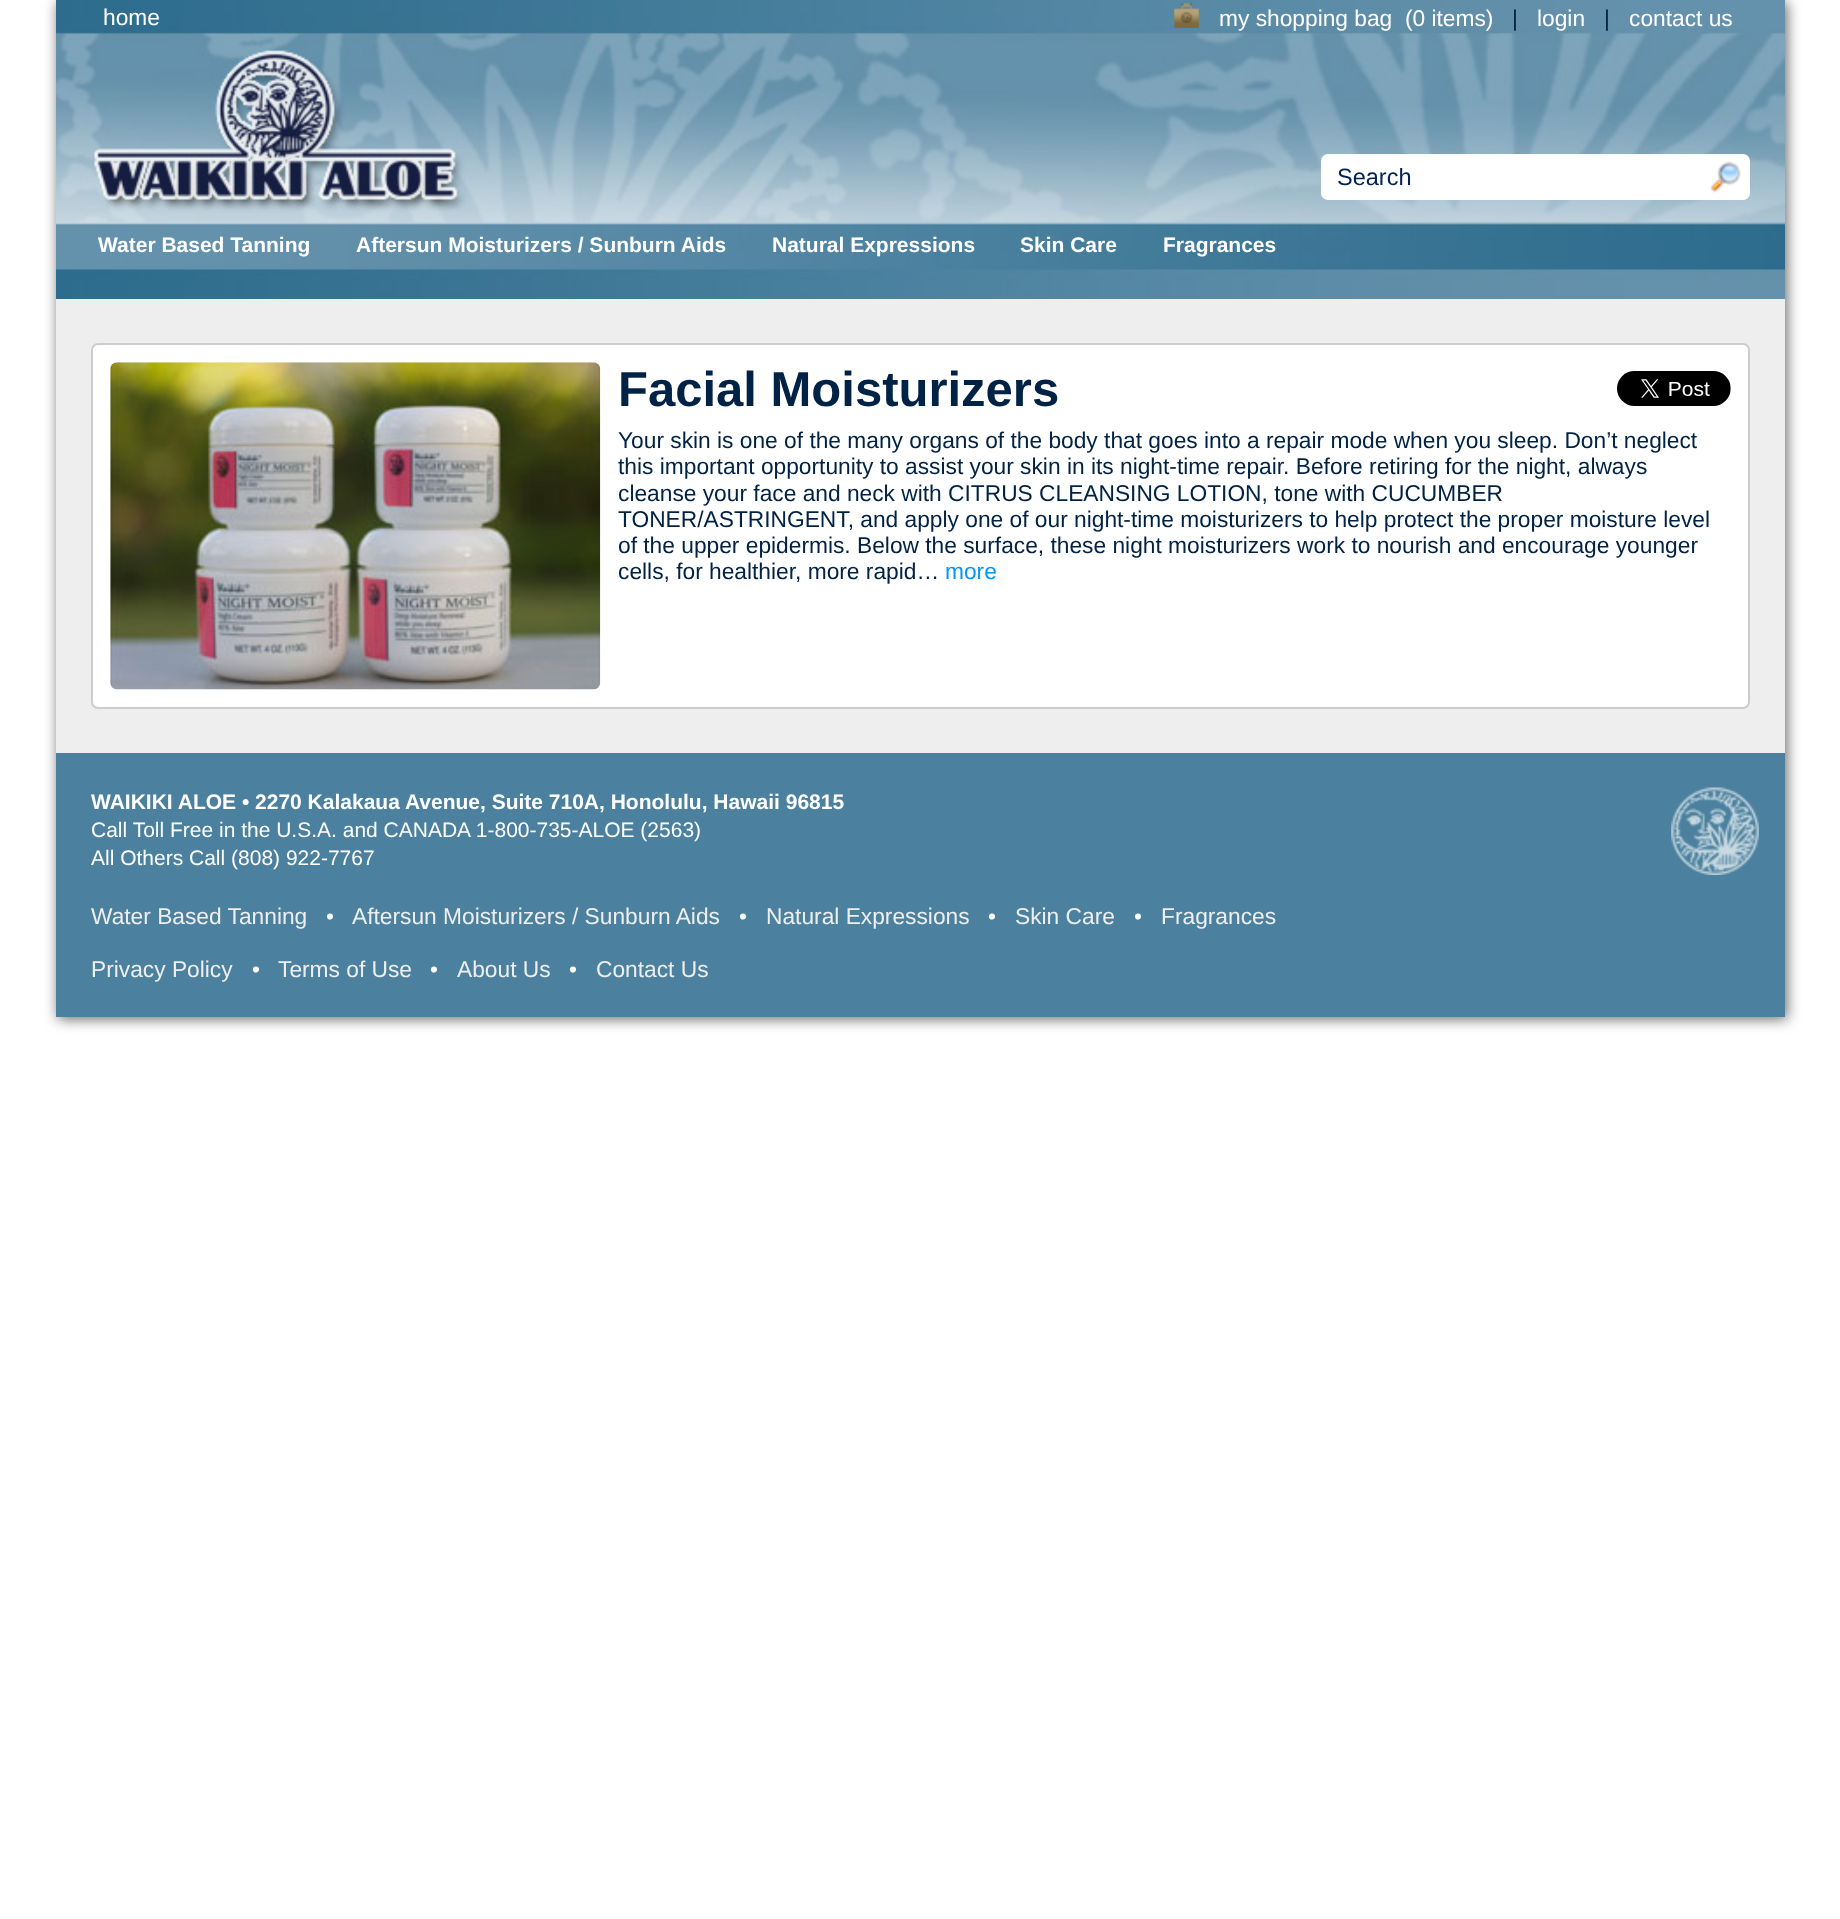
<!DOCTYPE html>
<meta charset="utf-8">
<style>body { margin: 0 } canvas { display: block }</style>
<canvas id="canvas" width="1840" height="1919"></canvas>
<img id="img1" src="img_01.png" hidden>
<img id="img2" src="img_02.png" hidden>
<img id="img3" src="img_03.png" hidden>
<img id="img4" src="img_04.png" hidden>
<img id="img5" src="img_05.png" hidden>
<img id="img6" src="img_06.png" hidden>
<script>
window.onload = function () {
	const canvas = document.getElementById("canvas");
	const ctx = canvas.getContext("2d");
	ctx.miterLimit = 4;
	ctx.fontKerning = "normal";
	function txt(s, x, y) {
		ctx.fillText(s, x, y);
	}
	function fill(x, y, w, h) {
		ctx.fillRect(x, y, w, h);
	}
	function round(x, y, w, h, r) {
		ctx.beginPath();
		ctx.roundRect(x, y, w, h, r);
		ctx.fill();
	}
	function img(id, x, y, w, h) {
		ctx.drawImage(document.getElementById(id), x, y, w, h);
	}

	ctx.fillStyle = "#FFFFFF";
	fill(0, 0, 1840, 1919);
	ctx.fillStyle = "#666666";
	ctx.filter = "blur(7px)";
	ctx.beginPath();
	ctx.rect(58, 2, 1729, 1017);
	ctx.fill();
	ctx.filter = "none";
	img("img1", 56, 0, 1729, 299);
	img("img2", 1174, 3, 25, 25);
	ctx.fillStyle = "#FFFFFF";
	round(1321, 154, 429, 46, 7);
	img("img3", 1710, 161, 32, 32);
	ctx.fillStyle = "#EEEEEE";
	fill(56, 299, 1729, 454);
	ctx.fillStyle = "#FFFFFF";
	ctx.beginPath();
	ctx.roundRect(92, 344, 1657, 364, 6);
	ctx.fill();
	ctx.strokeStyle = "#CCCCCC";
	ctx.lineWidth = 2;
	ctx.stroke();
	img("img4", 110, 362, 491, 328);
	img("img5", 1617, 371, 114, 35);
	ctx.fillStyle = "#4B819E";
	fill(56, 753, 1729, 264);
	img("img6", 1671, 787, 88, 88);
	ctx.font = "22.75px Liberation Sans";
	ctx.fillStyle = "#FFFFFF";
	txt("home", 103, 25);
	txt("my shopping bag  (0 items)", 1219, 26);
	ctx.fillStyle = "#002244";
	txt("|", 1512, 26);
	ctx.fillStyle = "#FFFFFF";
	txt("login", 1537, 26);
	ctx.fillStyle = "#002244";
	txt("|", 1604, 26);
	ctx.fillStyle = "#FFFFFF";
	txt("contact us", 1629, 26);
	ctx.font = "23.5px Liberation Sans";
	ctx.fillStyle = "#002255";
	txt("Search", 1337, 185);
	ctx.font = "bold 21px Liberation Sans";
	ctx.fillStyle = "#FFFFFF";
	txt("Water Based Tanning", 98, 252);
	txt("Aftersun Moisturizers / Sunburn Aids", 356, 252);
	txt("Natural Expressions", 772, 252);
	txt("Skin Care", 1020, 252);
	txt("Fragrances", 1163, 252);
	ctx.font = "bold 49px Liberation Sans";
	ctx.fillStyle = "#002244";
	txt("Facial Moisturizers", 618, 406);
	ctx.font = "22.75px Liberation Sans";
	txt("Your skin is one of the many organs of the body that goes into a repair mode when you sleep. Don’t neglect", 618, 448);
	txt("this important opportunity to assist your skin in its night-time repair. Before retiring for the night, always", 618, 474);
	txt("cleanse your face and neck with CITRUS CLEANSING LOTION, tone with CUCUMBER", 618, 501);
	txt("TONER/ASTRINGENT, and apply one of our night-time moisturizers to help protect the proper moisture level", 618, 527);
	txt("of the upper epidermis. Below the surface, these night moisturizers work to nourish and encourage younger", 618, 553);
	txt("cells, for healthier, more rapid…", 618, 579);
	ctx.fillStyle = "#0099FF";
	txt("more", 945, 579);
	ctx.font = "bold 21px Liberation Sans";
	ctx.fillStyle = "#FFFFFF";
	txt("WAIKIKI ALOE • 2270 Kalakaua Avenue, Suite 710A, Honolulu, Hawaii 96815", 91, 809);
	ctx.font = "21px Liberation Sans";
	txt("Call Toll Free in the U.S.A. and CANADA 1-800-735-ALOE (2563)", 91, 837);
	txt("All Others Call (808) 922-7767", 91, 865);
	ctx.font = "22.75px Liberation Sans";
	ctx.fillStyle = "#EEEEEE";
	txt("Water Based Tanning", 91, 924);
	ctx.fillStyle = "#FFFFFF";
	txt("•", 326, 924);
	ctx.fillStyle = "#EEEEEE";
	txt("Aftersun Moisturizers / Sunburn Aids", 352, 924);
	ctx.fillStyle = "#FFFFFF";
	txt("•", 739, 924);
	ctx.fillStyle = "#EEEEEE";
	txt("Natural Expressions", 766, 924);
	ctx.fillStyle = "#FFFFFF";
	txt("•", 988, 924);
	ctx.fillStyle = "#EEEEEE";
	txt("Skin Care", 1015, 924);
	ctx.fillStyle = "#FFFFFF";
	txt("•", 1134, 924);
	ctx.fillStyle = "#EEEEEE";
	txt("Fragrances", 1161, 924);
	txt("Privacy Policy", 91, 977);
	ctx.fillStyle = "#FFFFFF";
	txt("•", 252, 977);
	ctx.fillStyle = "#EEEEEE";
	txt("Terms of Use", 278, 977);
	ctx.fillStyle = "#FFFFFF";
	txt("•", 430, 977);
	ctx.fillStyle = "#EEEEEE";
	txt("About Us", 457, 977);
	ctx.fillStyle = "#FFFFFF";
	txt("•", 569, 977);
	ctx.fillStyle = "#EEEEEE";
	txt("Contact Us", 596, 977);
};
</script>
